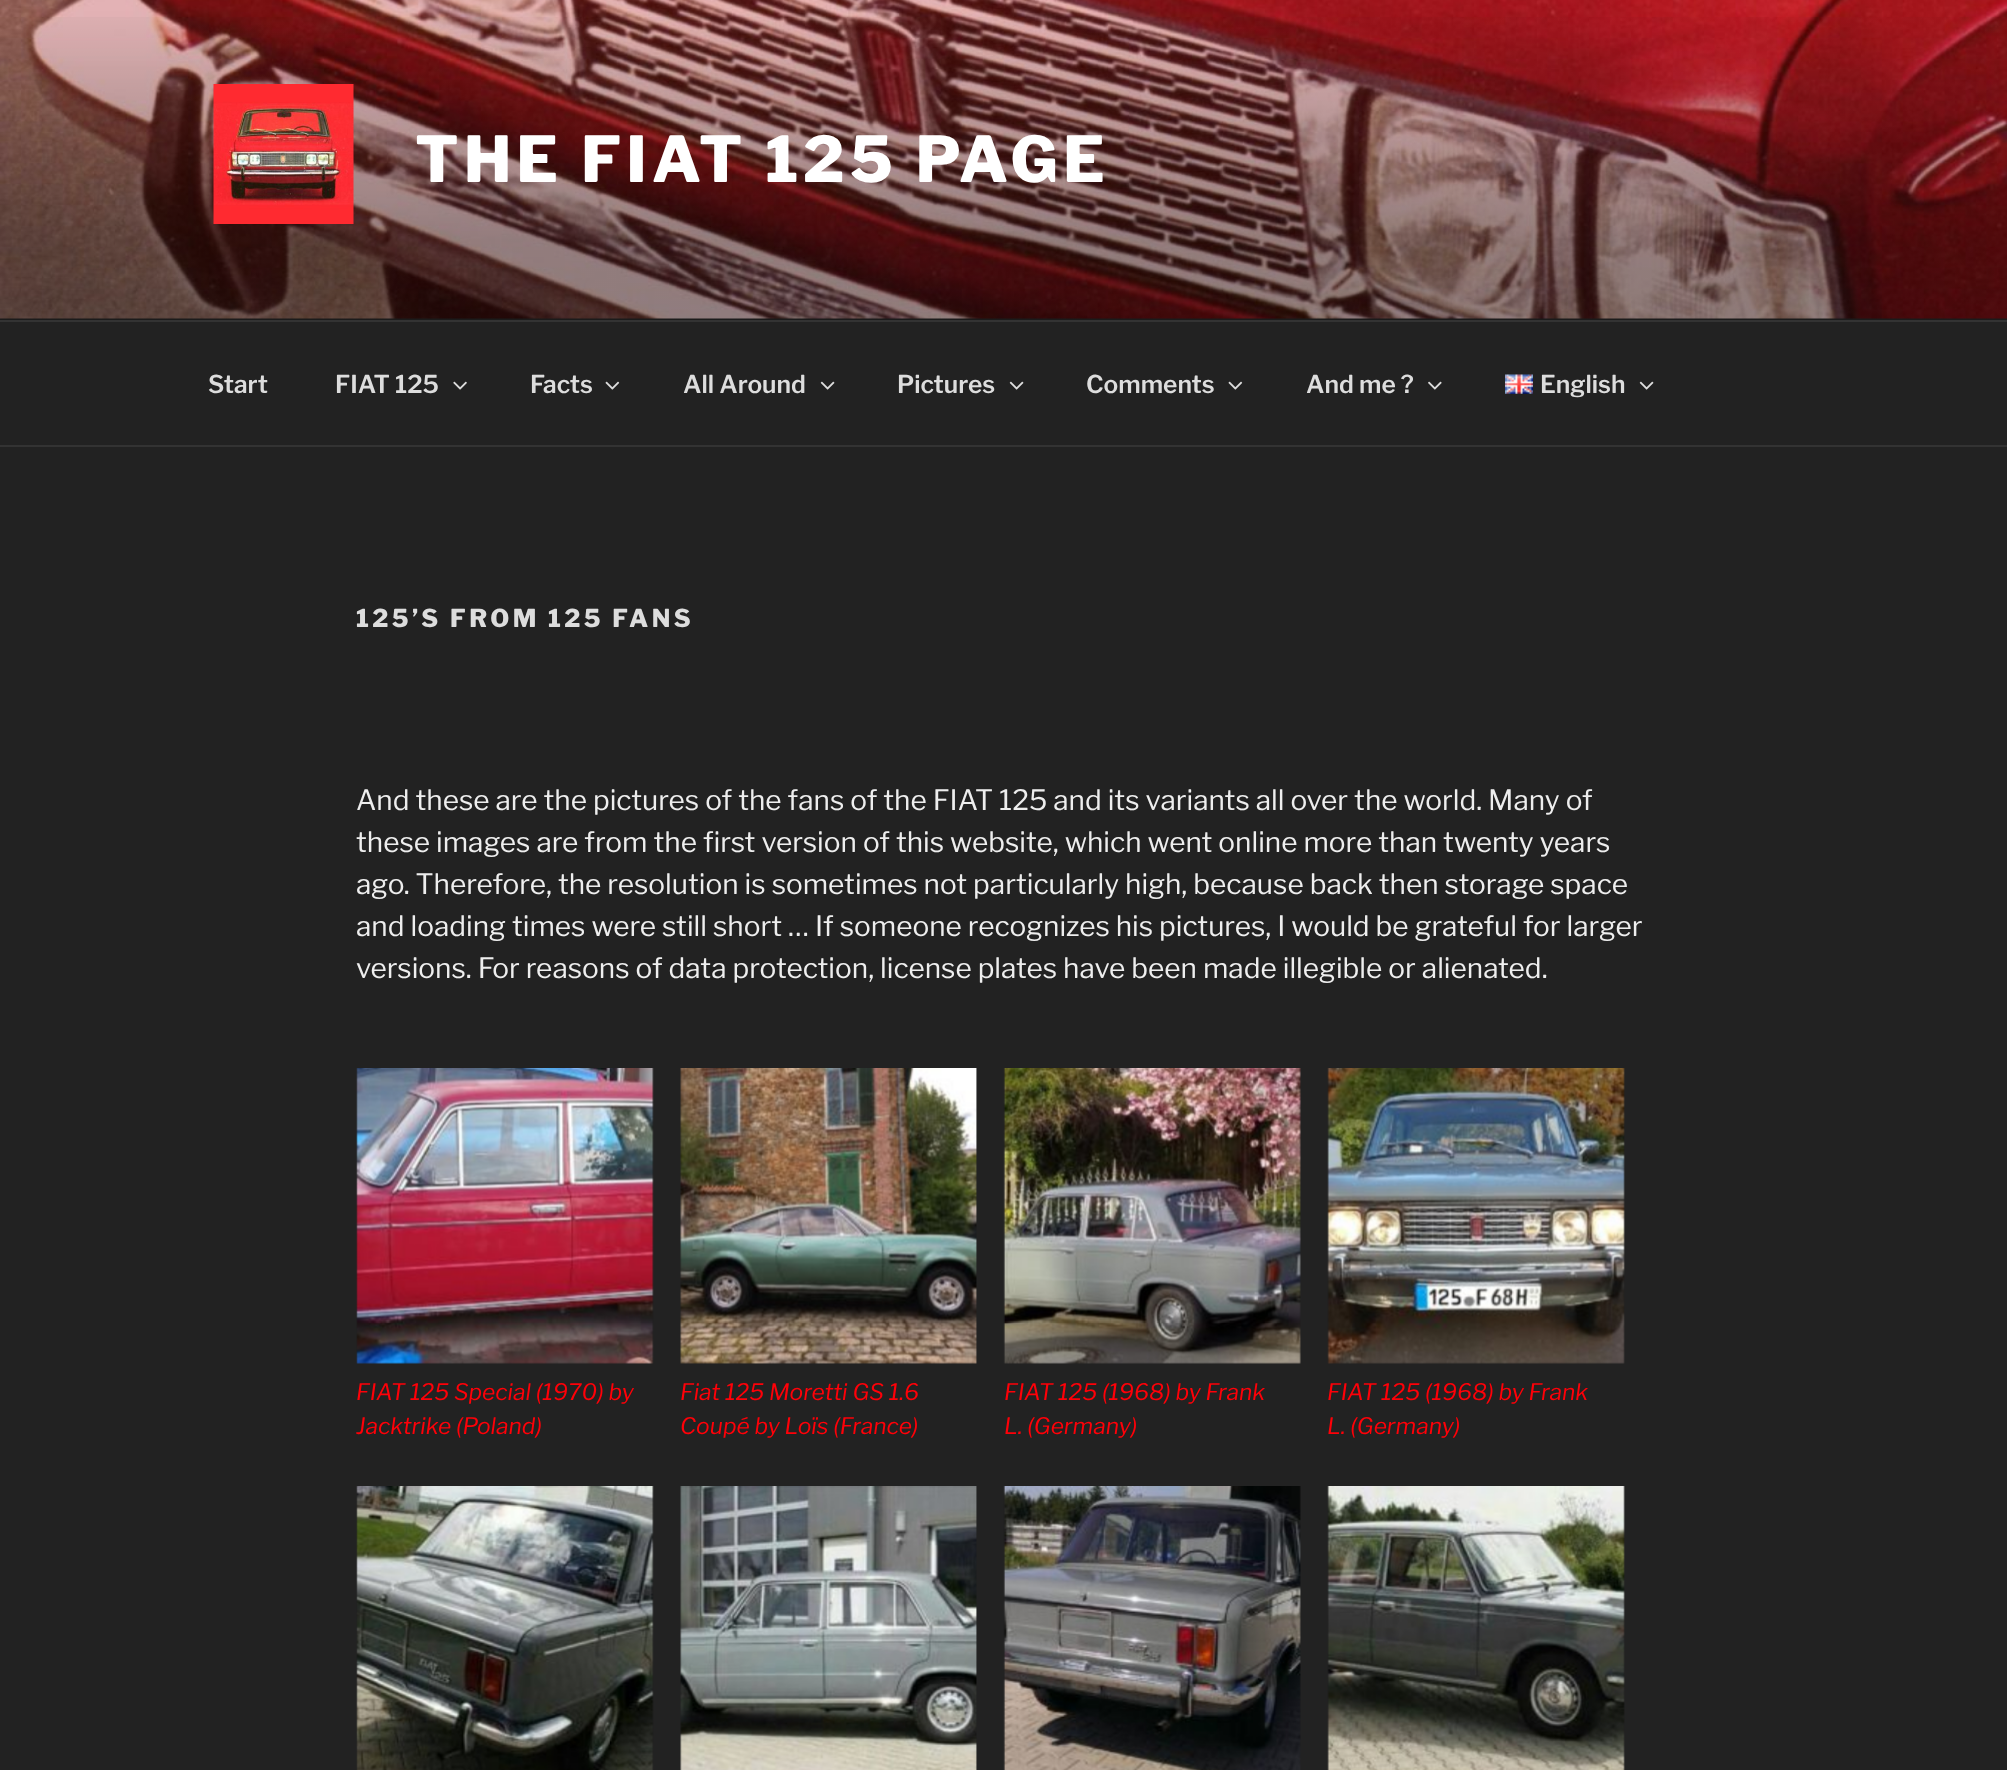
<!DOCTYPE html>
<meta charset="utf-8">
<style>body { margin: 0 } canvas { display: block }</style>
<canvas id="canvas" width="2007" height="1770"></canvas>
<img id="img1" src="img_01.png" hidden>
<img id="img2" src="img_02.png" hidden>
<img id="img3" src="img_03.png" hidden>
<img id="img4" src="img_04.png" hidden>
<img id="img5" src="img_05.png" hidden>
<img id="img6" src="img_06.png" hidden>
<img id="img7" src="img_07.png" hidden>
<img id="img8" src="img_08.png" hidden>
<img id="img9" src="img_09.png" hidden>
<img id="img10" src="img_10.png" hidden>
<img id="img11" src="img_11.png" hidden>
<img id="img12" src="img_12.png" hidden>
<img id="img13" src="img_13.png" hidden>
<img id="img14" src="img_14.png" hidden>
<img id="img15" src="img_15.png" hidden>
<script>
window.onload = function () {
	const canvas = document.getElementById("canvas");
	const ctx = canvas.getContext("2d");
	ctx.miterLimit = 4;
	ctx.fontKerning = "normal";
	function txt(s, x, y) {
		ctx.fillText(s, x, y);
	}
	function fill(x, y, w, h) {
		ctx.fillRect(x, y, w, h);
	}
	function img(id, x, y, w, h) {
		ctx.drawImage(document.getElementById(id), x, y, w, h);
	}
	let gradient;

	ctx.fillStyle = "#222222";
	fill(0, 0, 2007, 1770);
	ctx.fillStyle = "#262626";
	fill(0, 318, 2007, 2);
	img("img1", 0, 0, 2007, 319);
	gradient = ctx.createLinearGradient(1004, 0, 1004, 320);
	gradient.addColorStop(0, "rgba(0, 0, 0, 0)");
	gradient.addColorStop(0.75, "rgba(0, 0, 0, 0.3)");
	gradient.addColorStop(1, "rgba(0, 0, 0, 0.3)");
	ctx.fillStyle = gradient;
	fill(0, 17, 2007, 303);
	img("img2", 213, 84, 141, 140);
	ctx.fillStyle = "#333333";
	fill(0, 320, 2007, 2);
	fill(0, 445, 2007, 2);
	img("img3", 453, 381, 14, 9);
	img("img4", 605, 381, 15, 9);
	img("img5", 820, 381, 15, 9);
	img("img5", 1009, 381, 15, 9);
	img("img4", 1228, 381, 15, 9);
	img("img6", 1428, 381, 14, 9);
	img("img7", 1505, 374, 28, 20);
	img("img5", 1639, 381, 15, 9);
	img("img8", 356, 1068, 298, 296);
	img("img9", 680, 1068, 297, 296);
	img("img10", 1003, 1068, 298, 296);
	img("img11", 1327, 1068, 298, 296);
	img("img12", 356, 1486, 298, 284);
	img("img13", 680, 1486, 297, 284);
	img("img14", 1003, 1486, 298, 284);
	img("img15", 1327, 1486, 298, 284);
	ctx.letterSpacing = "5px";
	ctx.font = "100 63px Libre Franklin";
	ctx.fillStyle = "#FFFFFF";
	txt("THE FIAT 125 PAGE", 415, 182);
	ctx.letterSpacing = "0px";
	ctx.font = "100 24.5px 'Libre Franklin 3'";
	ctx.fillStyle = "#DDDDDD";
	txt("Start", 208, 393);
	txt("FIAT 125", 335, 393);
	txt("Facts", 530, 393);
	txt("All Around", 683, 393);
	txt("Pictures", 897, 393);
	txt("Comments", 1086, 393);
	txt("And me ?", 1306, 393);
	txt("English", 1540, 393);
	ctx.letterSpacing = "3.4px";
	ctx.font = "100 24.5px Libre Franklin";
	txt("125’S FROM 125 FANS", 356, 627);
	ctx.letterSpacing = "0px";
	ctx.font = "100 28px 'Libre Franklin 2'";
	ctx.fillStyle = "#EEEEEE";
	txt("And these are the pictures of the fans of the FIAT 125 and its variants all over the world. Many of", 356, 810);
	txt("these images are from the first version of this website, which went online more than twenty years", 356, 852);
	txt("ago. Therefore, the resolution is sometimes not particularly high, because back then storage space", 356, 894);
	txt("and loading times were still short … If someone recognizes his pictures, I would be grateful for larger", 356, 936);
	txt("versions. For reasons of data protection, license plates have been made illegible or alienated.", 356, 978);
	ctx.font = "italic 100 22.75px Libre Franklin";
	ctx.fillStyle = "#FF0008";
	txt("FIAT 125 Special (1970) by", 356, 1400);
	txt("Jacktrike (Poland)", 356, 1434);
	txt("Fiat 125 Moretti GS 1.6", 680, 1400);
	txt("Coupé by Loïs (France)", 680, 1434);
	txt("FIAT 125 (1968) by Frank", 1004, 1400);
	txt("L. (Germany)", 1004, 1434);
	txt("FIAT 125 (1968) by Frank", 1327, 1400);
	txt("L. (Germany)", 1327, 1434);
};
</script>
